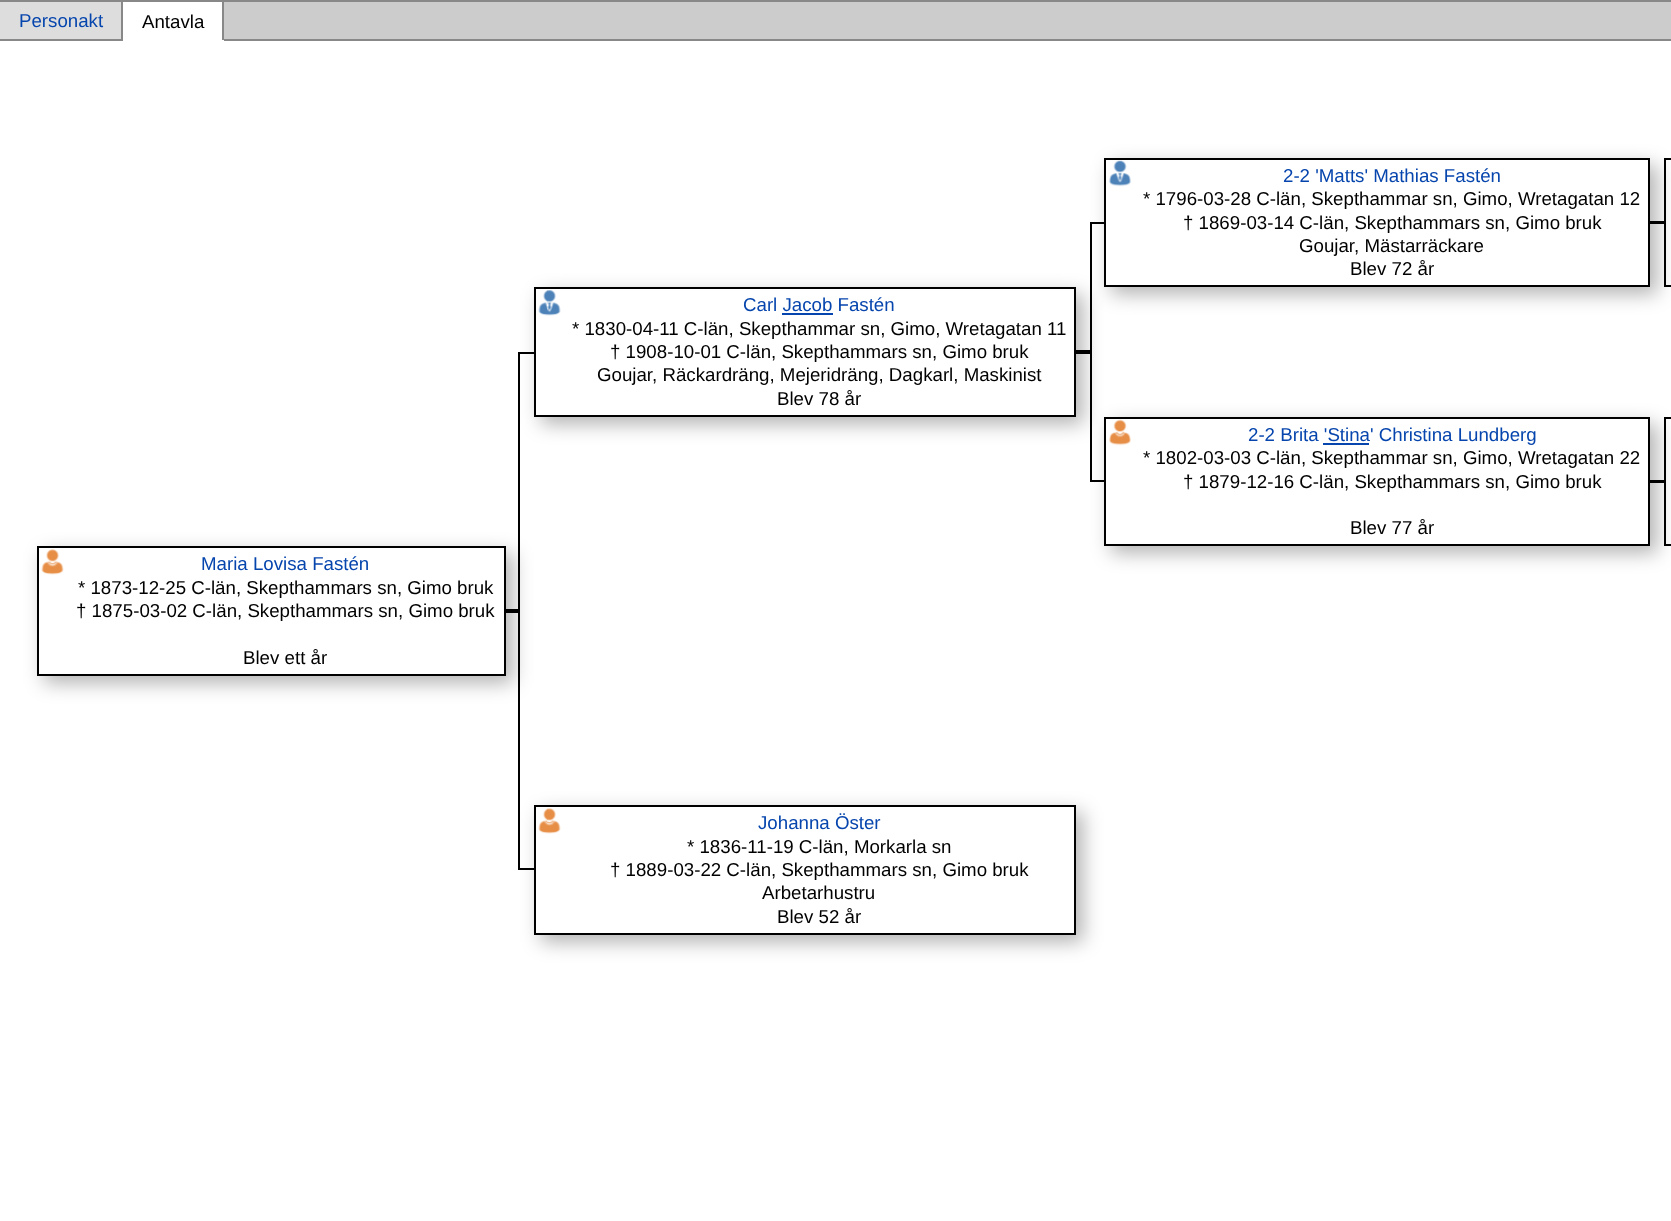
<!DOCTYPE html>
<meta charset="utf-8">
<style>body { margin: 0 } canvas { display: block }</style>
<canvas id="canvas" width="1671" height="1221"></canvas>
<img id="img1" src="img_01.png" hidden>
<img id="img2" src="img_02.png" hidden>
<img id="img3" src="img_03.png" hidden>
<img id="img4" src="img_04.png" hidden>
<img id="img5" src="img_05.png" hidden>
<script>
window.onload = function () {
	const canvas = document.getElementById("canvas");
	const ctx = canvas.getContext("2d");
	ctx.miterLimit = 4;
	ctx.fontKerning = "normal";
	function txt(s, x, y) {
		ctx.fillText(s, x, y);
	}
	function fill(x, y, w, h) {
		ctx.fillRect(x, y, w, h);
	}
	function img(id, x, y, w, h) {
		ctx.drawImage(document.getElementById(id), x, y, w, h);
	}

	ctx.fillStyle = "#FFFFFF";
	fill(0, 0, 1671, 1221);
	ctx.fillStyle = "#DDDDDD";
	fill(0, 2, 121, 37);
	ctx.fillStyle = "#888888";
	fill(0, 0, 1671, 2);
	fill(121, 0, 2, 40);
	fill(0, 39, 123, 2);
	fill(222, 0, 2, 40);
	ctx.fillStyle = "#CCCCCC";
	fill(224, 2, 1447, 37);
	ctx.fillStyle = "#888888";
	fill(224, 39, 1447, 2);
	ctx.fillStyle = "rgba(0, 0, 0, 0.3)";
	ctx.filter = "blur(9.5px)";
	ctx.beginPath();
	ctx.rect(1111, 165, 546, 129);
	ctx.fill();
	ctx.filter = "none";
	ctx.filter = "blur(9.5px)";
	ctx.beginPath();
	ctx.rect(541, 294, 542, 130);
	ctx.fill();
	ctx.filter = "none";
	ctx.fillStyle = "#FFFFFF";
	ctx.beginPath();
	ctx.rect(1105, 159, 544, 127);
	ctx.fill();
	ctx.strokeStyle = "#000000";
	ctx.lineWidth = 2;
	ctx.stroke();
	img("img1", 1109, 160, 22, 27);
	ctx.fillStyle = "#000000";
	fill(1650, 221, 14, 3);
	ctx.fillStyle = "#FFFFFF";
	ctx.beginPath();
	ctx.rect(535, 288, 540, 128);
	ctx.fill();
	ctx.stroke();
	img("img2", 538, 290, 23, 26);
	ctx.fillStyle = "#0645AD";
	fill(782, 313, 51, 2);
	ctx.fillStyle = "#000000";
	fill(1076, 350, 14, 4);
	ctx.fillStyle = "rgba(0, 0, 0, 0.3)";
	ctx.filter = "blur(9.5px)";
	ctx.beginPath();
	ctx.rect(44, 553, 469, 130);
	ctx.fill();
	ctx.filter = "none";
	ctx.fillStyle = "#FFFFFF";
	ctx.beginPath();
	ctx.rect(38, 547, 467, 128);
	ctx.fill();
	ctx.stroke();
	img("img3", 41, 549, 23, 26);
	ctx.fillStyle = "#000000";
	fill(506, 609, 12, 4);
	fill(1664, 158, 7, 2);
	fill(1664, 158, 2, 64);
	fill(1090, 222, 14, 2);
	fill(1090, 222, 2, 130);
	fill(1664, 285, 7, 2);
	fill(1664, 222, 2, 65);
	fill(518, 352, 16, 2);
	fill(518, 352, 2, 259);
	fill(1090, 480, 14, 2);
	fill(1090, 352, 2, 129);
	ctx.fillStyle = "rgba(0, 0, 0, 0.3)";
	ctx.filter = "blur(9.5px)";
	ctx.beginPath();
	ctx.rect(1111, 424, 546, 129);
	ctx.fill();
	ctx.filter = "none";
	ctx.fillStyle = "#FFFFFF";
	ctx.beginPath();
	ctx.rect(1105, 418, 544, 127);
	ctx.fill();
	ctx.stroke();
	img("img4", 1109, 419, 22, 27);
	ctx.fillStyle = "#0645AD";
	fill(1323, 443, 46, 2);
	ctx.fillStyle = "#000000";
	fill(1650, 480, 14, 3);
	fill(1664, 417, 7, 2);
	fill(1664, 417, 2, 64);
	fill(1664, 544, 7, 2);
	fill(1664, 481, 2, 65);
	fill(518, 868, 16, 2);
	fill(518, 611, 2, 259);
	ctx.fillStyle = "rgba(0, 0, 0, 0.3)";
	ctx.filter = "blur(9.5px)";
	ctx.beginPath();
	ctx.rect(541, 812, 542, 130);
	ctx.fill();
	ctx.filter = "none";
	ctx.fillStyle = "#FFFFFF";
	ctx.beginPath();
	ctx.rect(535, 806, 540, 128);
	ctx.fill();
	ctx.stroke();
	img("img5", 538, 808, 23, 26);
	ctx.font = "18.7px Liberation Sans";
	ctx.fillStyle = "#0645AD";
	txt("Personakt", 19, 27);
	ctx.fillStyle = "#000000";
	txt("Antavla", 142, 28);
	ctx.fillStyle = "#0645AD";
	txt("2-2 'Matts' Mathias Fastén", 1283, 182);
	ctx.fillStyle = "#000000";
	txt("* 1796-03-28 C-län, Skepthammar sn, Gimo, Wretagatan 12", 1143, 205);
	txt("† 1869-03-14 C-län, Skepthammars sn, Gimo bruk", 1183, 229);
	txt("Goujar, Mästarräckare", 1299, 252);
	txt("Blev 72 år", 1350, 275);
	ctx.fillStyle = "#0645AD";
	txt("Carl Jacob Fastén", 743, 311);
	ctx.fillStyle = "#000000";
	txt("* 1830-04-11 C-län, Skepthammar sn, Gimo, Wretagatan 11", 572, 335);
	txt("† 1908-10-01 C-län, Skepthammars sn, Gimo bruk", 610, 358);
	txt("Goujar, Räckardräng, Mejeridräng, Dagkarl, Maskinist", 597, 381);
	txt("Blev 78 år", 777, 405);
	ctx.fillStyle = "#0645AD";
	txt("Maria Lovisa Fastén", 201, 570);
	ctx.fillStyle = "#000000";
	txt("* 1873-12-25 C-län, Skepthammars sn, Gimo bruk", 78, 594);
	txt("† 1875-03-02 C-län, Skepthammars sn, Gimo bruk", 76, 617);
	txt("Blev ett år", 243, 664);
	ctx.fillStyle = "#0645AD";
	txt("2-2 Brita 'Stina' Christina Lundberg", 1248, 441);
	ctx.fillStyle = "#000000";
	txt("* 1802-03-03 C-län, Skepthammar sn, Gimo, Wretagatan 22", 1143, 464);
	txt("† 1879-12-16 C-län, Skepthammars sn, Gimo bruk", 1183, 488);
	txt("Blev 77 år", 1350, 534);
	ctx.fillStyle = "#0645AD";
	txt("Johanna Öster", 758, 829);
	ctx.fillStyle = "#000000";
	txt("* 1836-11-19 C-län, Morkarla sn", 687, 853);
	txt("† 1889-03-22 C-län, Skepthammars sn, Gimo bruk", 610, 876);
	txt("Arbetarhustru", 762, 899);
	txt("Blev 52 år", 777, 923);
};
</script>
